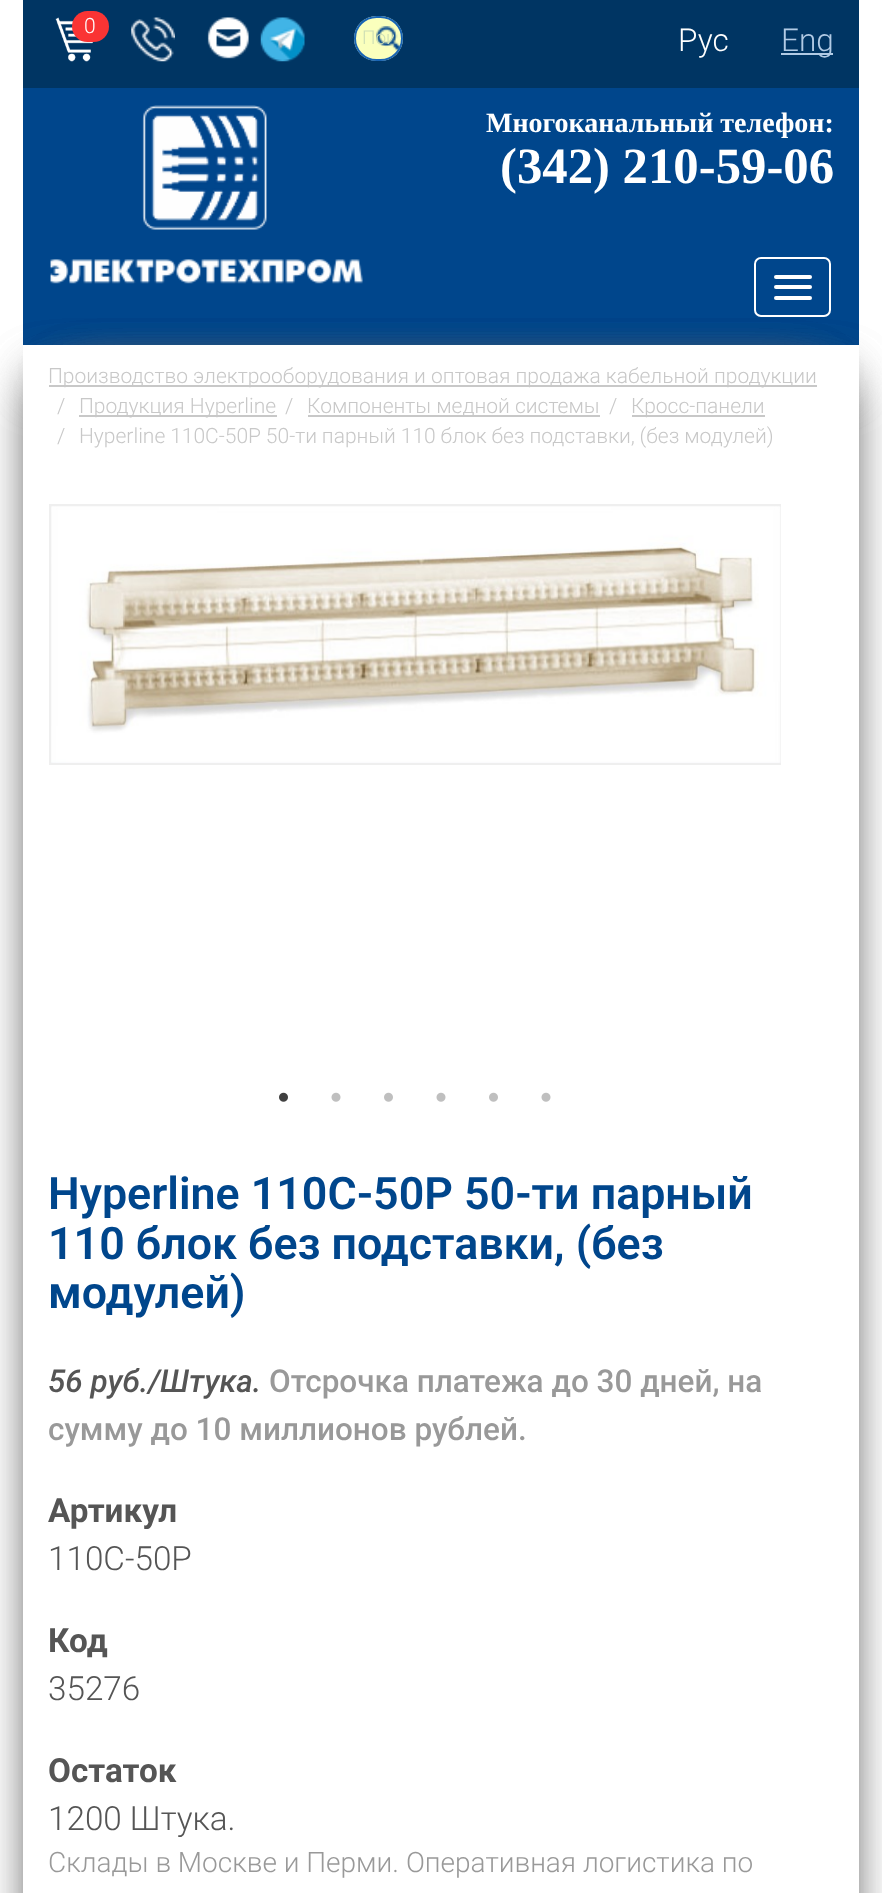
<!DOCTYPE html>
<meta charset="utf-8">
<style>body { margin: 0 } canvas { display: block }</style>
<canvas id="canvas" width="882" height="1893"></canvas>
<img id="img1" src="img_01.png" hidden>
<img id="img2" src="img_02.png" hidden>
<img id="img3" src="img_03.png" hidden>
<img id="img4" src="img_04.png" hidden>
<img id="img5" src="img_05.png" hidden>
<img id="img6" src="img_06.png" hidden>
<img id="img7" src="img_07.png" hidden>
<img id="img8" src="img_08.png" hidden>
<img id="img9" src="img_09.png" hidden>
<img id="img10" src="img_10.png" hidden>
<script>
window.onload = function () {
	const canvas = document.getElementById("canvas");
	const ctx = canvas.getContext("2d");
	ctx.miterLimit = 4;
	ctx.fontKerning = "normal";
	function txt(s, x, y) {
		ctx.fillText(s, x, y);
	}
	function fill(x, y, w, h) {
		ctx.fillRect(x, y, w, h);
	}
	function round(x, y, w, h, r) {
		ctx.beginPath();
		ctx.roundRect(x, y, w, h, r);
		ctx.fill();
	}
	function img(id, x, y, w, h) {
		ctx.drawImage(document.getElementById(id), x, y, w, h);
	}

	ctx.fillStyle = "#FFFFFF";
	fill(0, 0, 882, 1893);
	ctx.fillStyle = "#00468C";
	fill(23, 88, 836, 257);
	ctx.fillStyle = "#003563";
	fill(23, 0, 836, 88);
	img("img1", 55, 17, 38, 45);
	ctx.fillStyle = "#FA3434";
	round(72, 11, 37, 31, 15.5);
	img("img2", 131, 17, 44, 45);
	img("img3", 207, 17, 42, 42);
	img("img4", 260, 17, 45, 45);
	ctx.fillStyle = "#FAFFBD";
	round(354, 16, 49, 45, 22.5);
	img("img5", 376, 26, 25, 25);
	ctx.beginPath();
	ctx.roundRect(355, 17, 47, 43, 21.5);
	ctx.strokeStyle = "#1964B4";
	ctx.lineWidth = 2;
	ctx.stroke();
	ctx.fillStyle = "#B2CBE5";
	fill(781, 53, 52, 2);
	img("img6", 50, 105, 313, 179);
	ctx.save();
	ctx.beginPath();
	ctx.moveTo(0, 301);
	ctx.lineTo(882, 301);
	ctx.lineTo(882, 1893);
	ctx.lineTo(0, 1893);
	ctx.closePath();
	ctx.moveTo(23, 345);
	ctx.lineTo(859, 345);
	ctx.lineTo(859, 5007);
	ctx.lineTo(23, 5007);
	ctx.closePath();
	ctx.clip("evenodd");
	ctx.fillStyle = "#666666";
	ctx.filter = "blur(26px)";
	ctx.beginPath();
	ctx.rect(75, 380, 767, 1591);
	ctx.fill();
	ctx.filter = "none";
	ctx.filter = "blur(26px)";
	ctx.beginPath();
	ctx.rect(40, 380, 767, 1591);
	ctx.fill();
	ctx.filter = "none";
	ctx.filter = "blur(26px)";
	ctx.beginPath();
	ctx.rect(75, 380, 767, 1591);
	ctx.fill();
	ctx.filter = "none";
	ctx.filter = "blur(26px)";
	ctx.beginPath();
	ctx.rect(40, 380, 767, 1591);
	ctx.fill();
	ctx.filter = "none";
	ctx.restore();
	ctx.beginPath();
	ctx.roundRect(755, 258, 75, 58, 6);
	ctx.strokeStyle = "#FFFFFF";
	ctx.stroke();
	ctx.fillStyle = "#FFFFFF";
	round(774, 275, 38, 4, 2);
	round(774, 285, 38, 4, 2);
	round(774, 296, 38, 4, 2);
	ctx.fillStyle = "#C8C8C8";
	fill(49, 385, 768, 2);
	fill(79, 415, 198, 2);
	fill(308, 415, 292, 2);
	fill(632, 415, 133, 2);
	ctx.save();
	ctx.beginPath();
	ctx.rect(49, 504, 732, 613);
	ctx.clip();
	ctx.strokeStyle = "#EFEFEF";
	ctx.strokeRect(50, 505, 731, 259);
	ctx.restore();
	img("img7", 51, 506, 730, 257);
	img("img8", 279, 1092, 9, 10);
	img("img9", 331, 1092, 10, 10);
	img("img10", 384, 1092, 9, 10);
	img("img9", 436, 1092, 10, 10);
	img("img10", 489, 1092, 9, 10);
	img("img9", 541, 1092, 10, 10);
	ctx.font = "300 21px Roboto";
	ctx.fillStyle = "#FFFFFF";
	txt("0", 84, 33);
	ctx.save();
	ctx.beginPath();
	ctx.rect(362, 26, 32, 23);
	ctx.clip();
	ctx.font = "300 19px Roboto";
	ctx.fillStyle = "#CFDFB5";
	txt("Пои", 362, 44);
	ctx.restore();
	ctx.font = "300 31.5px Roboto";
	txt("Рус", 678, 51);
	ctx.fillStyle = "#B2CBE5";
	txt("Eng", 781, 51);
	ctx.font = "bold 28px Liberation Serif";
	ctx.fillStyle = "#FFFFFF";
	txt("Многоканальный телефон:", 486, 132);
	ctx.font = "bold 50.75px Liberation Serif";
	txt("(342) 210-59-06", 500, 183);
	ctx.font = "300 21px Roboto";
	ctx.fillStyle = "#C8C8C8";
	txt("Производство электрооборудования и оптовая продажа кабельной продукции", 48, 383);
	txt("/", 57, 413);
	txt("Продукция Hyperline", 79, 413);
	txt("/", 285, 413);
	txt("Компоненты медной системы", 307, 413);
	txt("/", 609, 413);
	txt("Кросс-панели", 631, 413);
	txt("/", 57, 443);
	ctx.wordSpacing = "-0.25px";
	txt("Hyperline 110C-50P 50-ти парный 110 блок без подставки, (без модулей)", 79, 443);
	ctx.wordSpacing = "0px";
	ctx.font = "600 44.75px Roboto";
	ctx.fillStyle = "#00468C";
	txt("Hyperline 110C-50P 50-ти парный", 48, 1209);
	txt("110 блок без подставки, (без", 48, 1259);
	txt("модулей)", 48, 1308);
	ctx.font = "italic 500 31.5px Roboto";
	ctx.fillStyle = "#555555";
	txt("56 руб./Штука.", 48, 1392);
	ctx.font = "500 31.5px Roboto";
	ctx.fillStyle = "#999999";
	txt("Отсрочка платежа до 30 дней, на", 269, 1392);
	txt("сумму до 10 миллионов рублей.", 48, 1440);
	ctx.font = "bold 33.25px Roboto";
	ctx.fillStyle = "#555555";
	txt("Артикул", 48, 1522);
	ctx.font = "300 33.25px Roboto";
	txt("110C-50P", 48, 1570);
	ctx.font = "bold 33.25px Roboto";
	txt("Код", 48, 1652);
	ctx.font = "300 33.25px Roboto";
	txt("35276", 48, 1700);
	ctx.font = "bold 33.25px Roboto";
	txt("Остаток", 48, 1782);
	ctx.font = "300 33.25px Roboto";
	txt("1200 Штука.", 48, 1830);
	ctx.font = "300 28px Roboto";
	ctx.fillStyle = "#999999";
	txt("Склады в Москве и Перми. Оперативная логистика по", 48, 1872);
};
</script>
